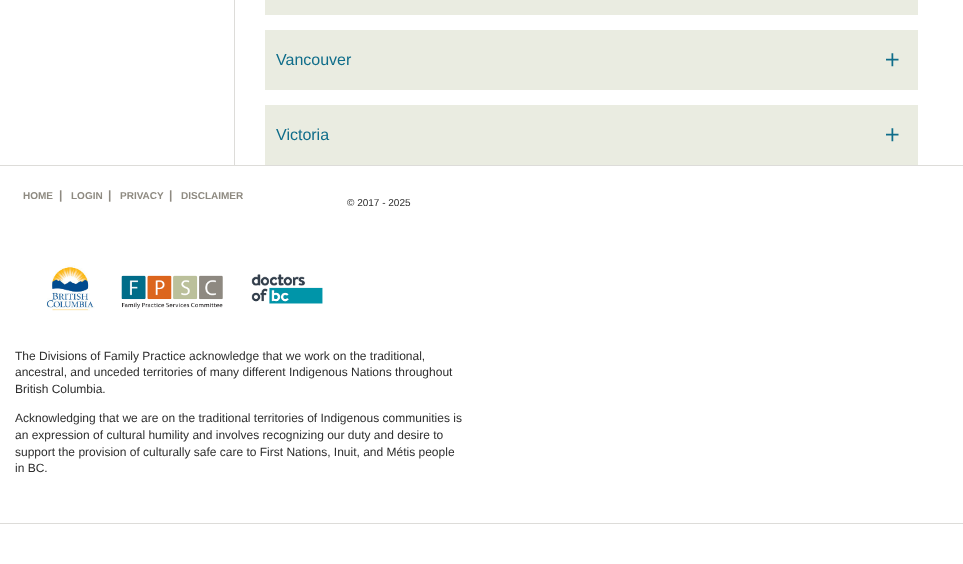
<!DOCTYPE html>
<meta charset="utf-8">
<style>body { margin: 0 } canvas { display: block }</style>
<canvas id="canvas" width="963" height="564"></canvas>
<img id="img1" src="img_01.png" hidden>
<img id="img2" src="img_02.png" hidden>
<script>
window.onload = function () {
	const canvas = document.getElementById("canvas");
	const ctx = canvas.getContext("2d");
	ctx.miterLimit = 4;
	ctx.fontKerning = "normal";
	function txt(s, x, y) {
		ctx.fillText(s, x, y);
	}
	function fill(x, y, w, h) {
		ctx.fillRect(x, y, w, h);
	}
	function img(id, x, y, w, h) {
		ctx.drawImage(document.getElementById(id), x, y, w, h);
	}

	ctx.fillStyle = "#FFFFFF";
	fill(0, 0, 963, 564);
	ctx.fillStyle = "#DDDCD9";
	fill(234, 0, 1, 165);
	ctx.fillStyle = "#EAECE1";
	fill(265, 0, 653, 15);
	fill(265, 30, 653, 60);
	img("img1", 886, 53, 13, 14);
	fill(265, 105, 653, 60);
	img("img1", 886, 128, 13, 14);
	ctx.fillStyle = "#DDDCD9";
	fill(0, 165, 963, 1);
	fill(0, 523, 963, 1);
	img("img2", 46, 265, 277, 46);
	ctx.font = "16px Liberation Sans";
	ctx.fillStyle = "#0F6D8A";
	txt("Vancouver", 276, 65);
	txt("Victoria", 276, 140);
	ctx.font = "bold 10px Liberation Sans";
	ctx.fillStyle = "#8E8A81";
	txt("HOME", 23, 199);
	ctx.font = "bold 12px Liberation Sans";
	txt("|", 59, 199);
	ctx.font = "bold 10px Liberation Sans";
	txt("LOGIN", 71, 199);
	ctx.font = "bold 12px Liberation Sans";
	txt("|", 108, 199);
	ctx.font = "bold 10px Liberation Sans";
	txt("PRIVACY", 120, 199);
	ctx.font = "bold 12px Liberation Sans";
	txt("|", 169, 199);
	ctx.font = "bold 10px Liberation Sans";
	txt("DISCLAIMER", 181, 199);
	ctx.font = "10px Liberation Sans";
	ctx.fillStyle = "#2E2E2E";
	txt("© 2017 - 2025", 347, 206);
	ctx.font = "12px Liberation Sans";
	txt("The Divisions of Family Practice acknowledge that we work on the traditional,", 15, 360);
	txt("ancestral, and unceded territories of many different Indigenous Nations throughout", 15, 376);
	txt("British Columbia.", 15, 393);
	txt("Acknowledging that we are on the traditional territories of Indigenous communities is", 15, 422);
	txt("an expression of cultural humility and involves recognizing our duty and desire to", 15, 439);
	txt("support the provision of culturally safe care to First Nations, Inuit, and Métis people", 15, 456);
	txt("in BC.", 15, 472);
};
</script>
